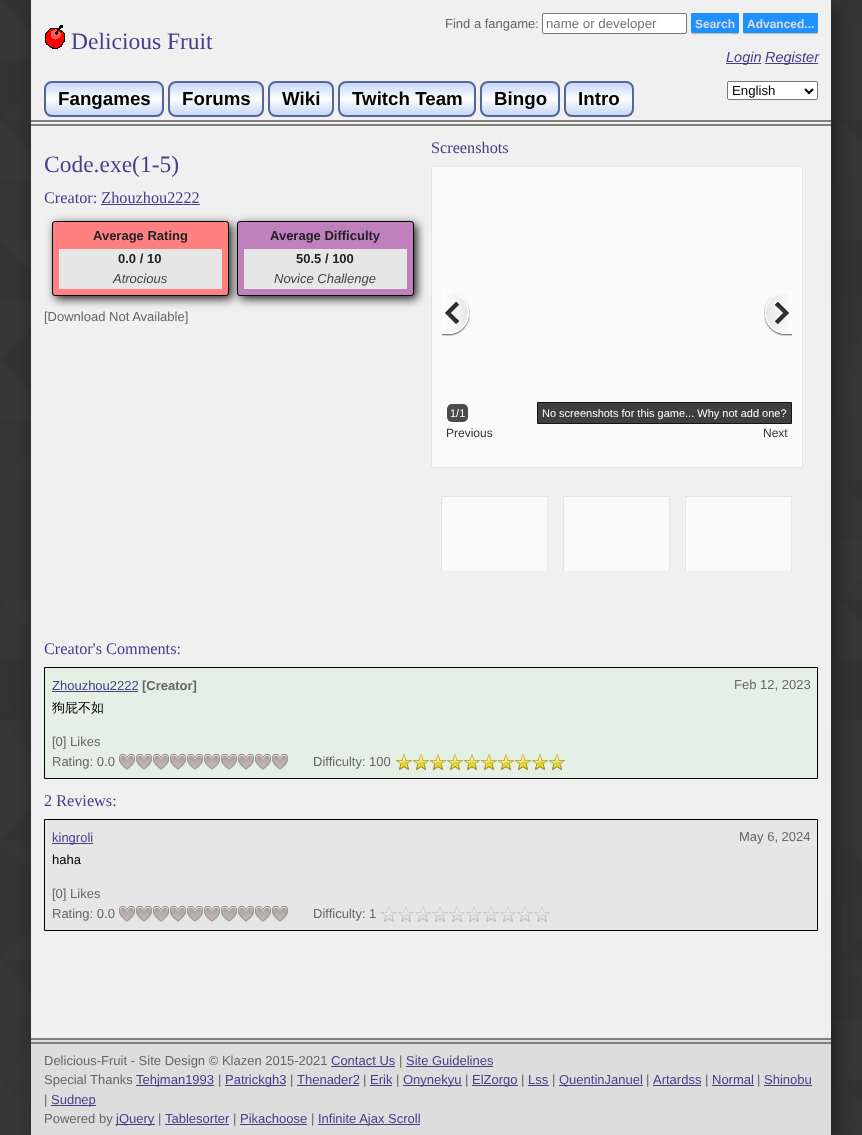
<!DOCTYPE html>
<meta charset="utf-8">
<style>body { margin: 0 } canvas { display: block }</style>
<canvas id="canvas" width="862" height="1135"></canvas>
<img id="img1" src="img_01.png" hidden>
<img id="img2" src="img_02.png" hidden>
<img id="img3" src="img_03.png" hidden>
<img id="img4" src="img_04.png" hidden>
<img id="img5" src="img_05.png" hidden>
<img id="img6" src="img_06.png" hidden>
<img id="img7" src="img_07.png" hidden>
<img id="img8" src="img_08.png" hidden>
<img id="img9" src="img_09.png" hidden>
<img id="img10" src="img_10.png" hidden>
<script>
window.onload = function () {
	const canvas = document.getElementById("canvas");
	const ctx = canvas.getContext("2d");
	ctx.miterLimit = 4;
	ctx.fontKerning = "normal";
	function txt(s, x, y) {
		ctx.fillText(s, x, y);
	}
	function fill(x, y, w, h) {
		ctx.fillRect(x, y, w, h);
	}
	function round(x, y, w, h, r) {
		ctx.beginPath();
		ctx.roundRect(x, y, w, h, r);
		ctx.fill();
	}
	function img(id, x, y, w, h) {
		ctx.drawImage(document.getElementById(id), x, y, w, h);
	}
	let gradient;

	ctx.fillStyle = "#FFFFFF";
	fill(0, 0, 862, 1135);
	img("img1", 0, 0, 862, 1135);
	ctx.fillStyle = "#222222";
	ctx.filter = "blur(10px)";
	ctx.beginPath();
	ctx.rect(36, 5, 800, 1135);
	ctx.fill();
	ctx.filter = "none";
	ctx.fillStyle = "#F0F0F0";
	fill(31, 0, 800, 1038);
	ctx.fillStyle = "#808080";
	fill(31, 120, 800, 2);
	fill(31, 124, 800, 2);
	img("img2", 45, 25, 20, 24);
	ctx.fillStyle = "#FFFFFF";
	ctx.beginPath();
	ctx.roundRect(542.5, 13.5, 144, 20, 1.5);
	ctx.fill();
	ctx.strokeStyle = "#767676";
	ctx.stroke();
	ctx.fillStyle = "#C0C0C0";
	ctx.beginPath();
	ctx.moveTo(691, 32);
	ctx.bezierCurveTo(691, 36, 696, 34, 700, 34);
	ctx.lineTo(730, 34);
	ctx.bezierCurveTo(734, 34, 739, 36, 739, 32);
	ctx.lineTo(738, 33);
	ctx.lineTo(692, 33);
	ctx.closePath();
	ctx.fill();
	ctx.fillStyle = "#1E90FF";
	round(691, 13, 48, 20, 1);
	ctx.fillStyle = "#C0C0C0";
	ctx.beginPath();
	ctx.moveTo(743, 32);
	ctx.lineTo(744, 34);
	ctx.lineTo(817, 34);
	ctx.bezierCurveTo(818, 34, 818, 33, 818, 32);
	ctx.lineTo(817, 33);
	ctx.lineTo(744, 33);
	ctx.closePath();
	ctx.fill();
	ctx.fillStyle = "#1E90FF";
	round(743, 13, 75, 20, 1);
	ctx.fillStyle = "#483D8B";
	fill(726, 63, 35, 1);
	fill(765, 63, 53, 1);
	ctx.save();
	ctx.beginPath();
	ctx.roundRect(44, 81, 120, 36, 8);
	ctx.clip();
	gradient = ctx.createLinearGradient(104, 83, 104, 115);
	gradient.addColorStop(0, "#C6D7F7");
	gradient.addColorStop(0.5, "#FDFDFD");
	gradient.addColorStop(1, "#C6D7F7");
	ctx.fillStyle = gradient;
	fill(44, 83, 120, 32);
	ctx.restore();
	ctx.beginPath();
	ctx.roundRect(45, 82, 118, 34, 7);
	ctx.strokeStyle = "#556699";
	ctx.lineWidth = 2;
	ctx.stroke();
	ctx.save();
	ctx.beginPath();
	ctx.roundRect(168, 81, 96, 36, 8);
	ctx.clip();
	gradient = ctx.createLinearGradient(216, 83, 216, 115);
	gradient.addColorStop(0, "#C6D7F7");
	gradient.addColorStop(0.5, "#FDFDFD");
	gradient.addColorStop(1, "#C6D7F7");
	ctx.fillStyle = gradient;
	fill(168, 83, 96, 32);
	ctx.restore();
	ctx.beginPath();
	ctx.roundRect(169, 82, 94, 34, 7);
	ctx.stroke();
	ctx.save();
	ctx.beginPath();
	ctx.roundRect(268, 81, 66, 36, 8);
	ctx.clip();
	gradient = ctx.createLinearGradient(301, 83, 301, 115);
	gradient.addColorStop(0, "#C6D7F7");
	gradient.addColorStop(0.5, "#FDFDFD");
	gradient.addColorStop(1, "#C6D7F7");
	ctx.fillStyle = gradient;
	fill(268, 83, 66, 32);
	ctx.restore();
	ctx.beginPath();
	ctx.roundRect(269, 82, 64, 34, 7);
	ctx.stroke();
	ctx.save();
	ctx.beginPath();
	ctx.roundRect(338, 81, 138, 36, 8);
	ctx.clip();
	gradient = ctx.createLinearGradient(407, 83, 407, 115);
	gradient.addColorStop(0, "#C6D7F7");
	gradient.addColorStop(0.5, "#FDFDFD");
	gradient.addColorStop(1, "#C6D7F7");
	ctx.fillStyle = gradient;
	fill(338, 83, 138, 32);
	ctx.restore();
	ctx.beginPath();
	ctx.roundRect(339, 82, 136, 34, 7);
	ctx.stroke();
	ctx.save();
	ctx.beginPath();
	ctx.roundRect(480, 81, 80, 36, 8);
	ctx.clip();
	gradient = ctx.createLinearGradient(520, 83, 520, 115);
	gradient.addColorStop(0, "#C6D7F7");
	gradient.addColorStop(0.5, "#FDFDFD");
	gradient.addColorStop(1, "#C6D7F7");
	ctx.fillStyle = gradient;
	fill(480, 83, 80, 32);
	ctx.restore();
	ctx.beginPath();
	ctx.roundRect(481, 82, 78, 34, 7);
	ctx.stroke();
	ctx.save();
	ctx.beginPath();
	ctx.roundRect(564, 81, 70, 36, 8);
	ctx.clip();
	gradient = ctx.createLinearGradient(599, 83, 599, 115);
	gradient.addColorStop(0, "#C6D7F7");
	gradient.addColorStop(0.5, "#FDFDFD");
	gradient.addColorStop(1, "#C6D7F7");
	ctx.fillStyle = gradient;
	fill(564, 83, 70, 32);
	ctx.restore();
	ctx.beginPath();
	ctx.roundRect(565, 82, 68, 34, 7);
	ctx.stroke();
	ctx.fillStyle = "#FFFFFF";
	ctx.beginPath();
	ctx.roundRect(727.5, 81.5, 90, 18, 1.5);
	ctx.fill();
	ctx.strokeStyle = "#767676";
	ctx.lineWidth = 1;
	ctx.stroke();
	ctx.beginPath();
	ctx.moveTo(805, 89);
	ctx.lineTo(809, 93);
	ctx.lineTo(813, 89);
	ctx.strokeStyle = "#000000";
	ctx.lineWidth = 2;
	ctx.stroke();
	ctx.fillStyle = "#483D8B";
	fill(101, 204, 99, 1);
	ctx.fillStyle = "#222222";
	ctx.filter = "blur(5px)";
	ctx.beginPath();
	ctx.roundRect(55, 224, 177, 75, 3);
	ctx.fill();
	ctx.filter = "none";
	ctx.fillStyle = "#FF8080";
	ctx.beginPath();
	ctx.roundRect(52.5, 221.5, 176, 74, 2.5);
	ctx.fill();
	ctx.lineWidth = 1;
	ctx.stroke();
	ctx.fillStyle = "#E6E6E6";
	fill(59, 249, 163, 40);
	ctx.fillStyle = "#222222";
	ctx.filter = "blur(5px)";
	ctx.beginPath();
	ctx.roundRect(240, 224, 177, 75, 3);
	ctx.fill();
	ctx.filter = "none";
	ctx.fillStyle = "#C080BE";
	ctx.beginPath();
	ctx.roundRect(237.5, 221.5, 176, 74, 2.5);
	ctx.fill();
	ctx.stroke();
	ctx.fillStyle = "#E6E6E6";
	fill(244, 249, 163, 40);
	ctx.fillStyle = "#FAFAFA";
	ctx.beginPath();
	ctx.rect(431.5, 166.5, 371, 301);
	ctx.fill();
	ctx.strokeStyle = "#E5E5E5";
	ctx.stroke();
	img("img3", 442, 292, 28, 44);
	img("img4", 764, 292, 28, 44);
	ctx.fillStyle = "#4B4B4B";
	round(447, 404, 21, 18, 5);
	ctx.fillStyle = "#3F3F3F";
	ctx.beginPath();
	ctx.rect(537.5, 402.5, 254, 21);
	ctx.fill();
	ctx.strokeStyle = "#141414";
	ctx.stroke();
	ctx.fillStyle = "#FAFAFA";
	fill(442, 497, 105, 74);
	ctx.save();
	ctx.beginPath();
	ctx.rect(436, 496, 365, 75);
	ctx.clip();
	ctx.strokeStyle = "#E5E5E5";
	ctx.strokeRect(441.5, 496.5, 106, 81);
	ctx.restore();
	fill(564, 497, 105, 74);
	ctx.save();
	ctx.beginPath();
	ctx.rect(436, 496, 365, 75);
	ctx.clip();
	ctx.strokeStyle = "#E5E5E5";
	ctx.strokeRect(563.5, 496.5, 106, 81);
	ctx.restore();
	fill(686, 497, 105, 74);
	ctx.save();
	ctx.beginPath();
	ctx.rect(436, 496, 365, 75);
	ctx.clip();
	ctx.strokeStyle = "#E5E5E5";
	ctx.strokeRect(685.5, 496.5, 106, 81);
	ctx.restore();
	ctx.fillStyle = "#E3F0E3";
	ctx.beginPath();
	ctx.rect(44.5, 667.5, 773, 111);
	ctx.fill();
	ctx.strokeStyle = "#000000";
	ctx.stroke();
	ctx.fillStyle = "#483D8B";
	fill(52, 691, 86, 1);
	img("img5", 119, 754, 169, 16);
	img("img6", 396, 754, 169, 16);
	img("img7", 396, 754, 169, 16);
	ctx.fillStyle = "#E6E6E6";
	ctx.beginPath();
	ctx.rect(44.5, 819.5, 773, 111);
	ctx.fill();
	ctx.stroke();
	ctx.fillStyle = "#483D8B";
	fill(52, 843, 41, 1);
	img("img8", 119, 906, 169, 16);
	img("img9", 381, 906, 169, 16);
	img("img10", 381, 912, 1, 2);
	ctx.fillStyle = "#DDDDDD";
	fill(31, 1040, 800, 95);
	ctx.fillStyle = "#808080";
	fill(31, 1038, 800, 2);
	fill(31, 1042, 800, 2);
	ctx.fillStyle = "#483D8B";
	fill(331, 1066, 64, 1);
	fill(406, 1066, 87, 1);
	fill(136, 1085, 78, 1);
	fill(225, 1085, 61, 1);
	fill(297, 1085, 62, 1);
	fill(370, 1085, 22, 1);
	fill(403, 1085, 59, 1);
	fill(472, 1085, 46, 1);
	fill(528, 1085, 21, 1);
	fill(559, 1085, 84, 1);
	fill(653, 1085, 48, 1);
	fill(712, 1085, 42, 1);
	fill(764, 1085, 48, 1);
	fill(51, 1105, 45, 1);
	fill(116, 1124, 39, 1);
	fill(165, 1124, 64, 1);
	fill(240, 1124, 67, 1);
	fill(318, 1124, 102, 1);
	ctx.font = "23.5px Liberation Serif";
	txt("Delicious Fruit", 71, 49);
	ctx.font = "13px Liberation Sans";
	ctx.fillStyle = "#666666";
	txt("Find a fangame:", 445, 28);
	ctx.font = "13.25px Liberation Sans";
	ctx.fillStyle = "#757575";
	txt("name or developer", 546, 28);
	ctx.font = "bold 12px Liberation Sans";
	ctx.fillStyle = "#DDDDDD";
	txt("Search", 695, 28);
	txt("Advanced...", 747, 28);
	ctx.font = "italic 14.5px Liberation Sans";
	ctx.fillStyle = "#483D8B";
	txt("Login", 726, 62);
	txt("Register", 765, 62);
	ctx.font = "bold 18.75px Liberation Sans";
	ctx.fillStyle = "#000000";
	txt("Fangames", 58, 105);
	txt("Forums", 182, 105);
	txt("Wiki", 282, 105);
	txt("Twitch Team", 352, 105);
	txt("Bingo", 494, 105);
	txt("Intro", 578, 105);
	ctx.font = "13.25px Liberation Sans";
	txt("English", 732, 95);
	ctx.font = "23.5px Liberation Serif";
	ctx.fillStyle = "#483D8B";
	txt("Code.exe(1-5)", 44, 172);
	ctx.font = "16.25px Liberation Serif";
	txt("Creator: Zhouzhou2222", 44, 203);
	ctx.font = "bold 13px Liberation Sans";
	ctx.fillStyle = "#222222";
	txt("Average Rating", 93, 240);
	txt("0.0 / 10", 118, 263);
	ctx.font = "italic 13px Liberation Sans";
	ctx.fillStyle = "#444444";
	txt("Atrocious", 113, 283);
	ctx.font = "bold 13px Liberation Sans";
	ctx.fillStyle = "#222222";
	txt("Average Difficulty", 270, 240);
	txt("50.5 / 100", 296, 263);
	ctx.font = "italic 13px Liberation Sans";
	ctx.fillStyle = "#444444";
	txt("Novice Challenge", 274, 283);
	ctx.font = "13px Liberation Sans";
	ctx.fillStyle = "#666666";
	txt("[Download Not Available]", 44, 321);
	ctx.font = "16.25px Liberation Serif";
	ctx.fillStyle = "#483D8B";
	txt("Screenshots", 431, 153);
	ctx.font = "11px Liberation Sans";
	ctx.fillStyle = "#FFFFFF";
	txt("1/1", 450, 417);
	txt("No screenshots for this game... Why not add one?", 542, 417);
	ctx.font = "12px Liberation Sans";
	ctx.fillStyle = "#333333";
	txt("Previous", 446, 437);
	txt("Next", 763, 437);
	ctx.font = "16.25px Liberation Serif";
	ctx.fillStyle = "#483D8B";
	txt("Creator's Comments:", 44, 654);
	ctx.font = "13px Liberation Sans";
	txt("Zhouzhou2222", 52, 690);
	ctx.font = "bold 13px Liberation Sans";
	ctx.fillStyle = "#666666";
	txt("[Creator]", 142, 690);
	ctx.font = "13px Liberation Sans";
	txt("Feb 12, 2023", 734, 689);
	ctx.font = "500 13px WenQuanYi Zen Hei";
	ctx.fillStyle = "#000000";
	txt("狗屁不如", 52, 712);
	ctx.font = "13px Liberation Sans";
	ctx.fillStyle = "#666666";
	txt("[0] Likes", 52, 746);
	txt("Rating: 0.0", 52, 766);
	txt("Difficulty: 100", 313, 766);
	ctx.font = "16.25px Liberation Serif";
	ctx.fillStyle = "#483D8B";
	txt("2 Reviews:", 44, 806);
	ctx.font = "13px Liberation Sans";
	txt("kingroli", 52, 842);
	ctx.fillStyle = "#666666";
	txt("May 6, 2024", 739, 841);
	ctx.fillStyle = "#000000";
	txt("haha", 52, 864);
	ctx.fillStyle = "#666666";
	txt("[0] Likes", 52, 898);
	txt("Rating: 0.0", 52, 918);
	txt("Difficulty: 1", 313, 918);
	txt("Delicious-Fruit - Site Design © Klazen 2015-2021", 44, 1065);
	ctx.fillStyle = "#483D8B";
	txt("Contact Us", 331, 1065);
	ctx.fillStyle = "#666666";
	txt("|", 399, 1065);
	ctx.fillStyle = "#483D8B";
	txt("Site Guidelines", 406, 1065);
	ctx.fillStyle = "#666666";
	txt("Special Thanks", 44, 1084);
	ctx.fillStyle = "#483D8B";
	txt("Tehjman1993", 136, 1084);
	ctx.fillStyle = "#666666";
	txt("|", 218, 1084);
	ctx.fillStyle = "#483D8B";
	txt("Patrickgh3", 225, 1084);
	ctx.fillStyle = "#666666";
	txt("|", 290, 1084);
	ctx.fillStyle = "#483D8B";
	txt("Thenader2", 297, 1084);
	ctx.fillStyle = "#666666";
	txt("|", 363, 1084);
	ctx.fillStyle = "#483D8B";
	txt("Erik", 370, 1084);
	ctx.fillStyle = "#666666";
	txt("|", 396, 1084);
	ctx.fillStyle = "#483D8B";
	txt("Onynekyu", 403, 1084);
	ctx.fillStyle = "#666666";
	txt("|", 465, 1084);
	ctx.fillStyle = "#483D8B";
	txt("ElZorgo", 472, 1084);
	ctx.fillStyle = "#666666";
	txt("|", 521, 1084);
	ctx.fillStyle = "#483D8B";
	txt("Lss", 528, 1084);
	ctx.fillStyle = "#666666";
	txt("|", 552, 1084);
	ctx.fillStyle = "#483D8B";
	txt("QuentinJanuel", 559, 1084);
	ctx.fillStyle = "#666666";
	txt("|", 646, 1084);
	ctx.fillStyle = "#483D8B";
	txt("Artardss", 653, 1084);
	ctx.fillStyle = "#666666";
	txt("|", 705, 1084);
	ctx.fillStyle = "#483D8B";
	txt("Normal", 712, 1084);
	ctx.fillStyle = "#666666";
	txt("|", 757, 1084);
	ctx.fillStyle = "#483D8B";
	txt("Shinobu", 764, 1084);
	ctx.fillStyle = "#666666";
	txt("|", 44, 1104);
	ctx.fillStyle = "#483D8B";
	txt("Sudnep", 51, 1104);
	ctx.fillStyle = "#666666";
	txt("Powered by", 44, 1123);
	ctx.fillStyle = "#483D8B";
	txt("jQuery", 116, 1123);
	ctx.fillStyle = "#666666";
	txt("|", 158, 1123);
	ctx.fillStyle = "#483D8B";
	txt("Tablesorter", 165, 1123);
	ctx.fillStyle = "#666666";
	txt("|", 233, 1123);
	ctx.fillStyle = "#483D8B";
	txt("Pikachoose", 240, 1123);
	ctx.fillStyle = "#666666";
	txt("|", 311, 1123);
	ctx.fillStyle = "#483D8B";
	txt("Infinite Ajax Scroll", 318, 1123);
};
</script>
